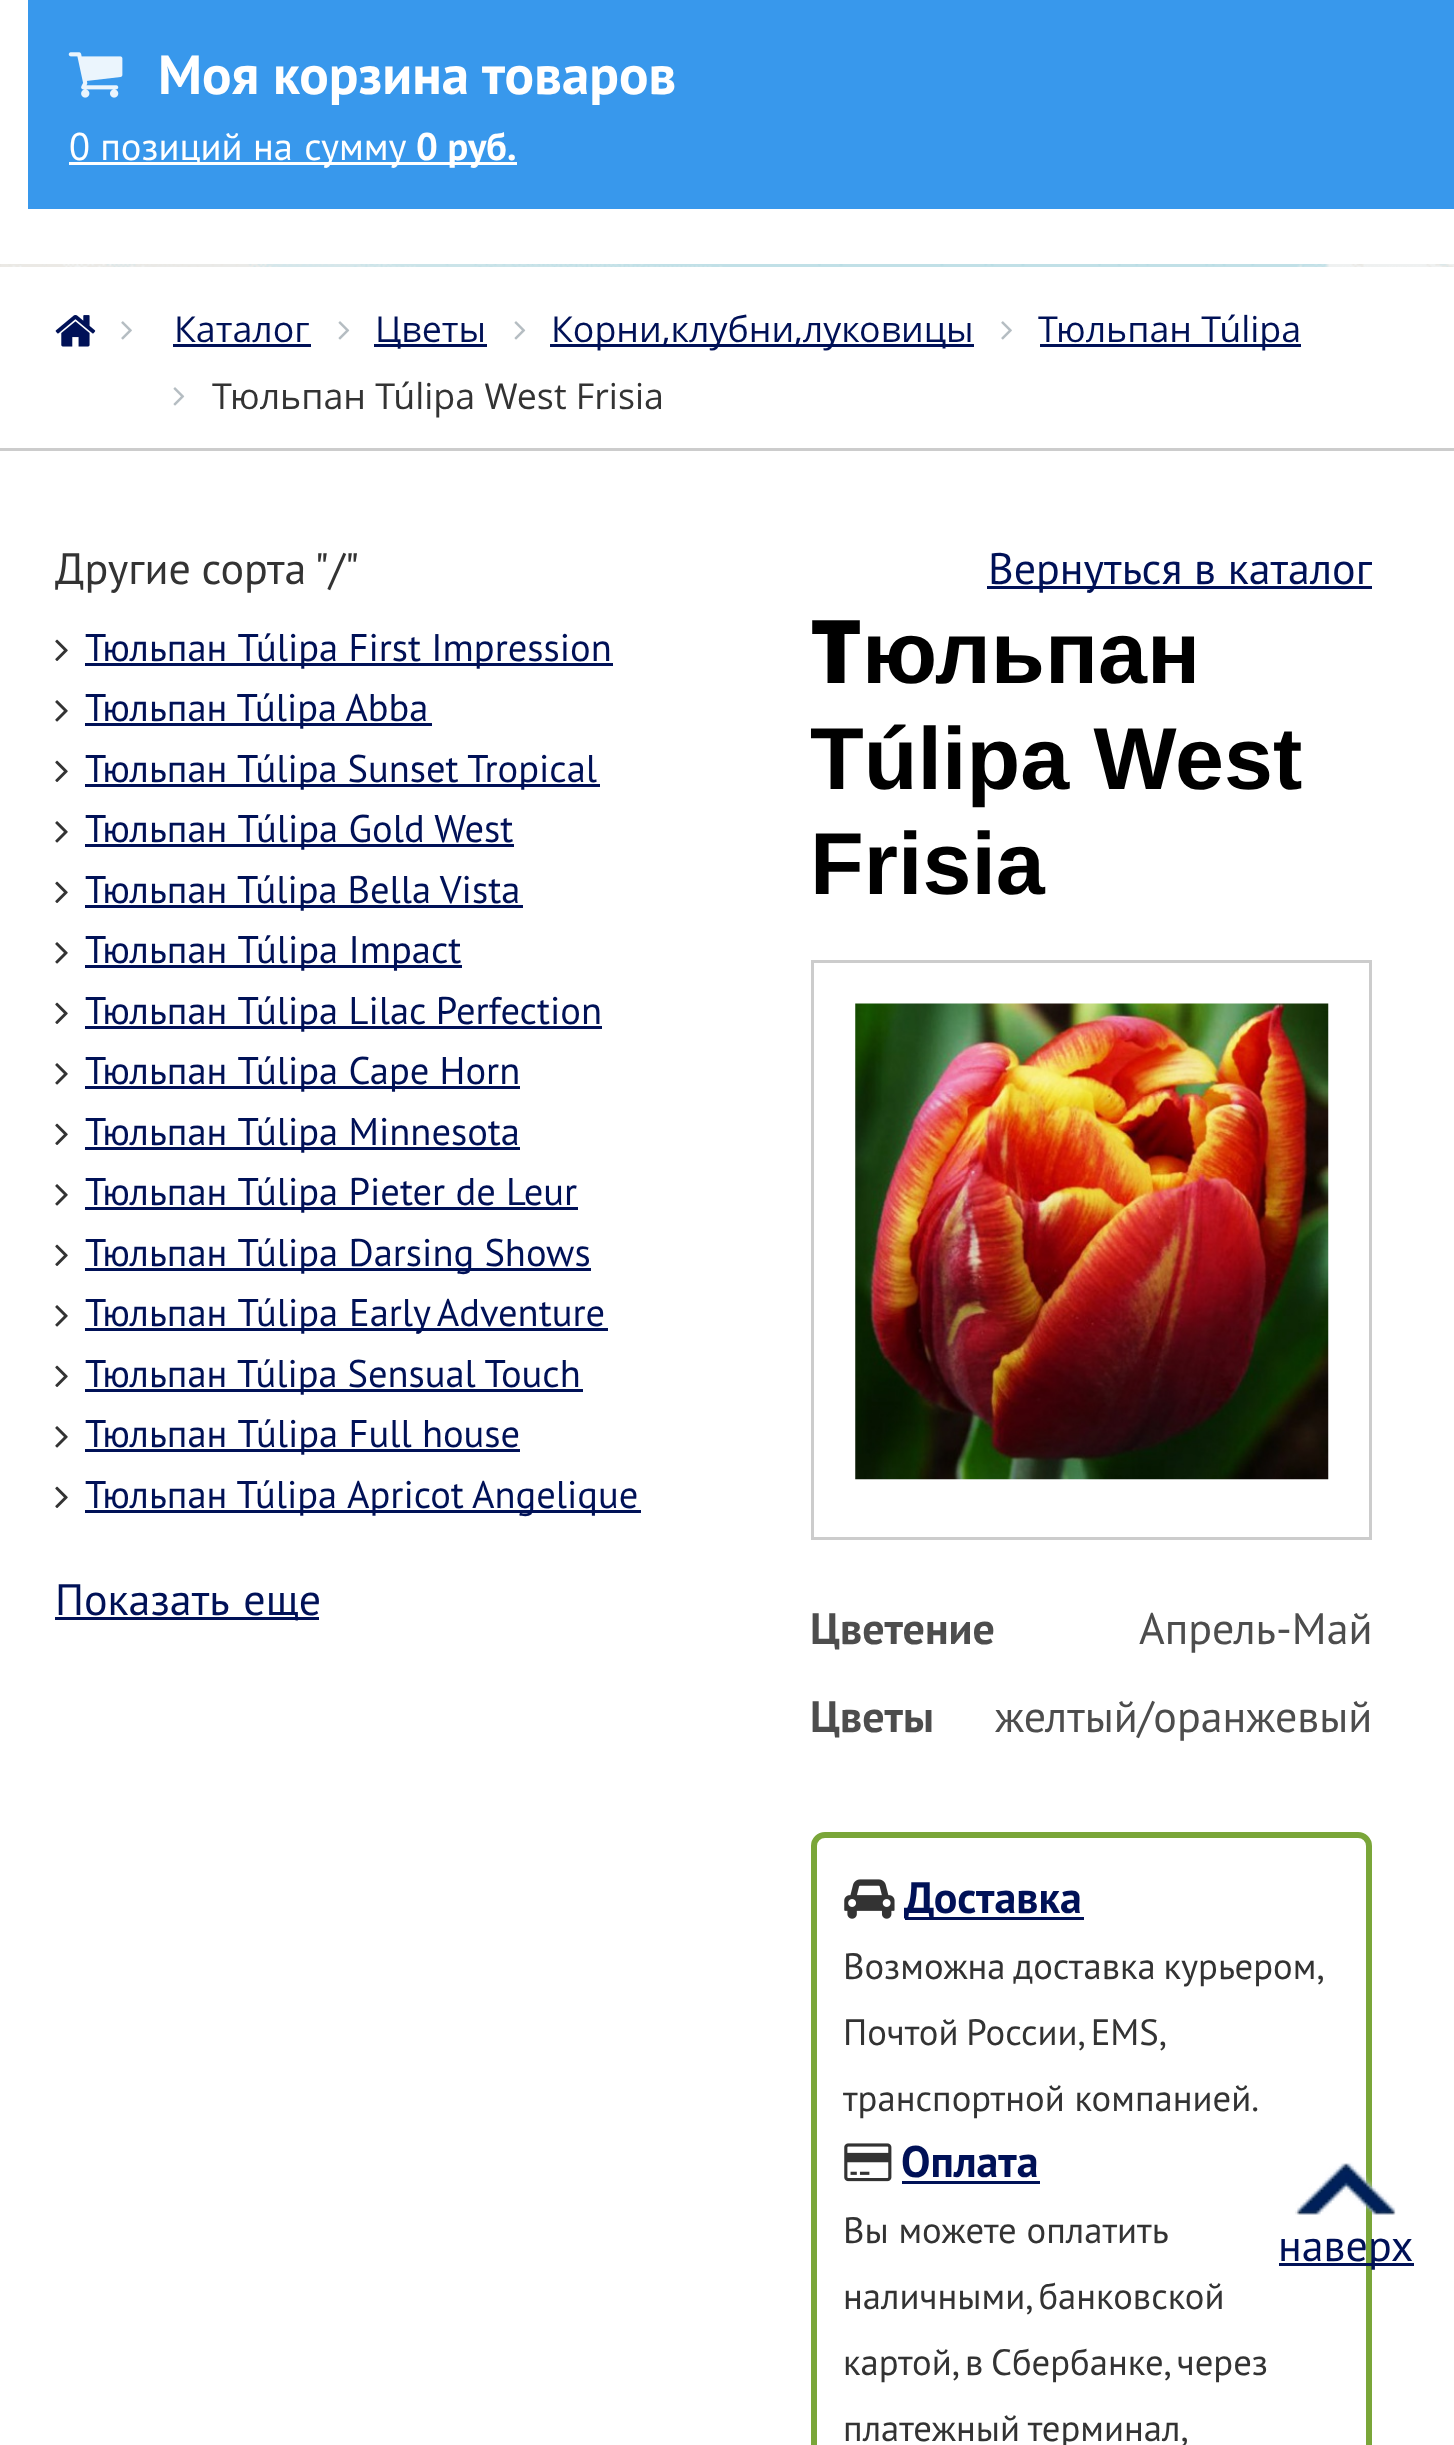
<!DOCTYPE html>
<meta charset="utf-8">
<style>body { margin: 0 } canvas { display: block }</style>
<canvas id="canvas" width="1454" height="2445"></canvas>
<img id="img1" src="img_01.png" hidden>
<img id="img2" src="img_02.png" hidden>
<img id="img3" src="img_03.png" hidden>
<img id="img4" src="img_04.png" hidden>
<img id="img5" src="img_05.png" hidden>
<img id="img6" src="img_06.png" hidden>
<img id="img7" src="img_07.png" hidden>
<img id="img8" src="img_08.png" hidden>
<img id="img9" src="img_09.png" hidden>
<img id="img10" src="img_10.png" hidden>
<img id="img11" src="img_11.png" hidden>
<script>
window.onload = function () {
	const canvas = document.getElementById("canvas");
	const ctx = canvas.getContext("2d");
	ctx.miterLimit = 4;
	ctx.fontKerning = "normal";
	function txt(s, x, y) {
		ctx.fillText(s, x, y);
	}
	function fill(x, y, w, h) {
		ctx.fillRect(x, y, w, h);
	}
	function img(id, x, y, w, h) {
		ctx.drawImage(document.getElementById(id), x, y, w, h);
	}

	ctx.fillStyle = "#F2F2F2";
	fill(0, 0, 1454, 2445);
	img("img1", 0, 264, 1454, 3);
	ctx.fillStyle = "#FFFFFF";
	fill(0, 0, 1454, 264);
	ctx.fillStyle = "#3898EC";
	fill(28, 0, 1426, 209);
	img("img2", 68, 52, 55, 46);
	ctx.fillStyle = "#FFFFFF";
	fill(69, 162, 448, 3);
	fill(0, 267, 1454, 2178);
	ctx.fillStyle = "#CCCCCC";
	fill(0, 448, 1454, 3);
	img("img3", 55, 315, 41, 32);
	img("img4", 121, 321, 11, 19);
	ctx.fillStyle = "#001157";
	fill(173, 344, 138, 3);
	img("img5", 338, 321, 12, 19);
	fill(374, 344, 113, 3);
	img("img5", 514, 321, 12, 19);
	fill(550, 344, 424, 3);
	img("img4", 1001, 321, 11, 19);
	fill(1040, 344, 261, 3);
	img("img5", 173, 387, 12, 19);
	img("img6", 55, 639, 13, 22);
	fill(85, 663, 528, 3);
	img("img7", 55, 700, 13, 22);
	fill(85, 723, 347, 3);
	img("img6", 55, 760, 13, 22);
	fill(85, 784, 515, 3);
	img("img7", 55, 821, 13, 22);
	fill(85, 844, 429, 3);
	img("img6", 55, 881, 13, 22);
	fill(85, 905, 438, 3);
	img("img7", 55, 942, 13, 22);
	fill(85, 965, 377, 3);
	img("img6", 55, 1002, 13, 22);
	fill(85, 1026, 517, 3);
	img("img7", 55, 1063, 13, 22);
	fill(85, 1086, 435, 3);
	img("img6", 55, 1123, 13, 22);
	fill(85, 1147, 435, 3);
	img("img7", 55, 1184, 13, 22);
	fill(85, 1207, 493, 3);
	img("img6", 55, 1244, 13, 22);
	fill(85, 1268, 506, 3);
	img("img7", 55, 1305, 13, 22);
	fill(85, 1328, 523, 3);
	img("img6", 55, 1365, 13, 22);
	fill(85, 1389, 498, 3);
	img("img7", 55, 1426, 13, 22);
	fill(85, 1449, 435, 3);
	img("img6", 55, 1486, 13, 22);
	fill(85, 1510, 556, 3);
	fill(55, 1617, 264, 3);
	fill(987, 586, 385, 3);
	ctx.strokeStyle = "#CCCCCC";
	ctx.lineWidth = 3;
	ctx.strokeRect(812.5, 961.5, 558, 577);
	img("img8", 855, 1003, 474, 477);
	ctx.beginPath();
	ctx.roundRect(814, 1835, 555, 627, 11);
	ctx.strokeStyle = "#7AA639";
	ctx.lineWidth = 6;
	ctx.stroke();
	img("img9", 844, 1879, 51, 40);
	fill(905, 1917, 179, 3);
	img("img10", 844, 2143, 48, 39);
	fill(902, 2181, 138, 3);
	img("img11", 1295, 2162, 101, 53);
	fill(1279, 2263, 135, 3);
	ctx.font = "bold 55px PT Sans";
	ctx.fillStyle = "#FFFFFF";
	txt("Моя корзина товаров", 158, 94);
	ctx.font = "38.5px PT Sans";
	txt("0 позиций", 69, 160);
	ctx.wordSpacing = "1px";
	txt("на сумму", 253, 160);
	ctx.wordSpacing = "0px";
	ctx.font = "bold 38.5px PT Sans";
	txt("0 руб.", 416, 160);
	ctx.font = "35.75px Open Sans";
	ctx.fillStyle = "#001157";
	txt("Каталог", 174, 342);
	txt("Цветы", 375, 342);
	txt("Корни,клубни,луковицы", 551, 342);
	txt("Тюльпан Túlipa", 1038, 342);
	ctx.fillStyle = "#333333";
	txt("Тюльпан Túlipa West Frisia", 212, 409);
	ctx.wordSpacing = "-1px";
	ctx.font = "44px PT Sans";
	txt("Другие сорта \"/\"", 55, 584);
	ctx.wordSpacing = "0px";
	ctx.font = "38.5px PT Sans";
	ctx.fillStyle = "#001157";
	txt("Тюльпан Túlipa First Impression", 85, 661);
	ctx.wordSpacing = "-1px";
	txt("Тюльпан Túlipa Abba", 85, 721);
	ctx.wordSpacing = "-0.5px";
	txt("Тюльпан Túlipa Sunset Tropical", 85, 782);
	ctx.wordSpacing = "0px";
	txt("Тюльпан Túlipa Gold West", 85, 842);
	ctx.wordSpacing = "-0.5px";
	txt("Тюльпан Túlipa Bella Vista", 85, 903);
	ctx.wordSpacing = "0px";
	txt("Тюльпан Túlipa Impact", 85, 963);
	txt("Тюльпан Túlipa Lilac Perfection", 85, 1024);
	txt("Тюльпан Túlipa Cape Horn", 85, 1084);
	txt("Тюльпан Túlipa Minnesota", 85, 1145);
	txt("Тюльпан Túlipa Pieter de Leur", 85, 1205);
	txt("Тюльпан Túlipa Darsing Shows", 85, 1266);
	txt("Тюльпан Túlipa", 85, 1326);
	ctx.wordSpacing = "-2px";
	txt("Early Adventure", 349, 1326);
	ctx.wordSpacing = "-0.5px";
	txt("Тюльпан Túlipa Sensual Touch", 85, 1387);
	ctx.wordSpacing = "0px";
	txt("Тюльпан Túlipa Full house", 85, 1447);
	ctx.wordSpacing = "-1px";
	txt("Тюльпан Túlipa", 85, 1508);
	txt("Apricot Angelique", 347, 1508);
	ctx.wordSpacing = "2px";
	ctx.font = "44px PT Sans";
	txt("Показать еще", 55, 1615);
	ctx.wordSpacing = "0px";
	txt("Вернуться в каталог", 988, 584);
	ctx.font = "900 88px Noto Sans";
	ctx.fillStyle = "#000000";
	txt("Т", 810, 683);
	ctx.font = "bold 88px Liberation Sans";
	txt("юльпан", 862, 683);
	txt("Túlipa West", 810, 789);
	txt("Frisia", 810, 894);
	ctx.font = "bold 44px PT Sans";
	ctx.fillStyle = "#4D4D4D";
	txt("Цветение", 810, 1644);
	ctx.font = "44px PT Sans";
	txt("Апрель-Май", 1139, 1644);
	ctx.font = "bold 44px PT Sans";
	txt("Цветы", 810, 1732);
	ctx.font = "44px PT Sans";
	txt("желтый/оранжевый", 995, 1732);
	ctx.font = "bold 44px PT Sans";
	ctx.fillStyle = "#001157";
	txt("Доставка", 904, 1913);
	ctx.wordSpacing = "-2px";
	ctx.font = "36.7px PT Sans";
	ctx.fillStyle = "#333333";
	txt("Возможна доставка курьером,", 843, 1979);
	txt("Почтой России, EMS,", 843, 2045);
	ctx.wordSpacing = "0px";
	txt("транспортной компанией.", 843, 2111);
	ctx.font = "bold 44px PT Sans";
	ctx.fillStyle = "#001157";
	txt("Оплата", 901, 2177);
	ctx.font = "36.7px PT Sans";
	ctx.fillStyle = "#333333";
	txt("Вы можете оплатить", 843, 2243);
	ctx.wordSpacing = "-2px";
	txt("наличными, банковской", 843, 2309);
	txt("картой, в Сбербанке, через", 843, 2375);
	txt("платежный терминал,", 843, 2441);
	ctx.wordSpacing = "0px";
	ctx.font = "44px PT Sans";
	ctx.fillStyle = "#001157";
	txt("наверх", 1278, 2261);
};
</script>
